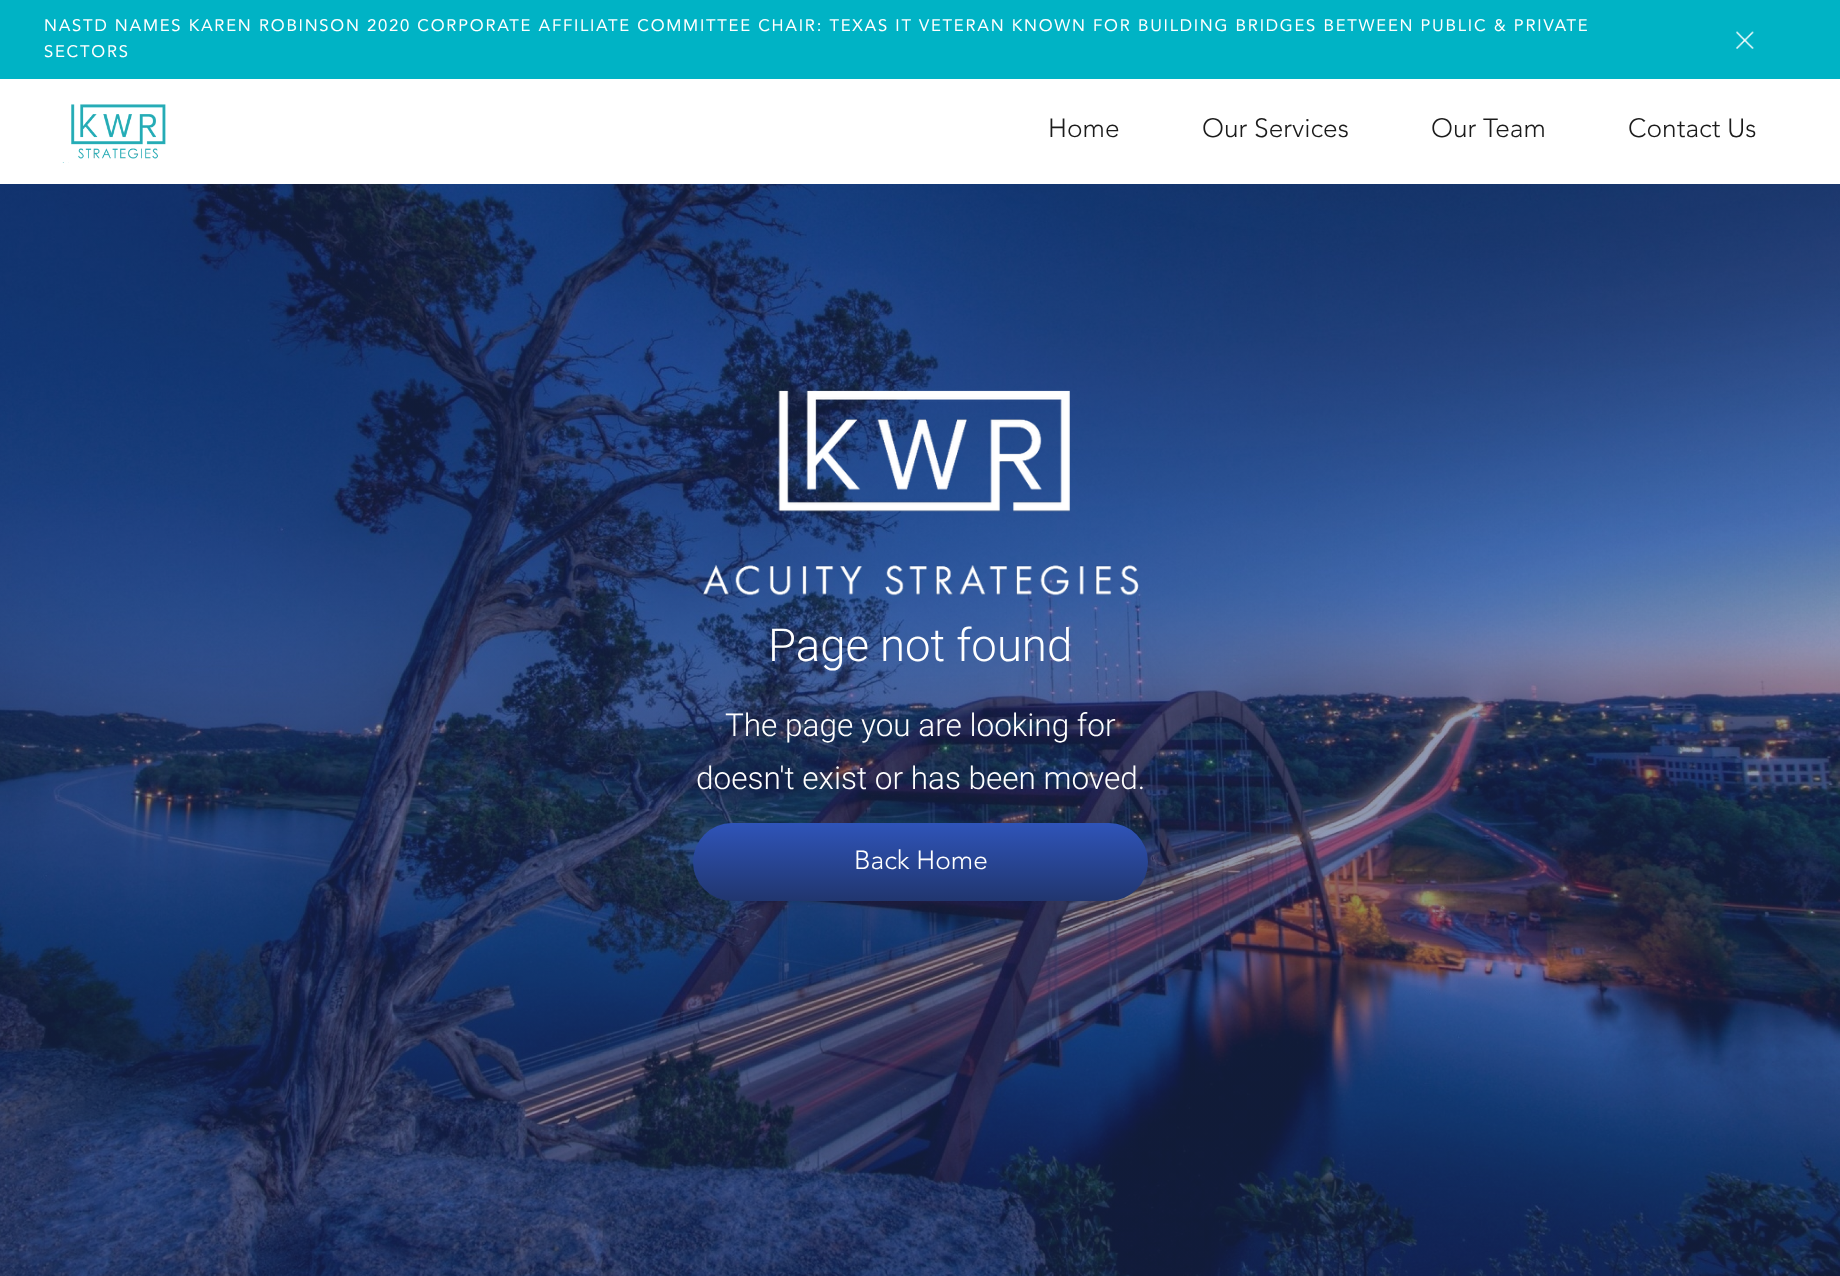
<!DOCTYPE html>
<meta charset="utf-8">
<style>body { margin: 0 } canvas { display: block }</style>
<canvas id="canvas" width="1840" height="1276"></canvas>
<img id="img1" src="img_01.png" hidden>
<img id="img2" src="img_02.png" hidden>
<img id="img3" src="img_03.png" hidden>
<img id="img4" src="img_04.png" hidden>
<script>
window.onload = function () {
	const canvas = document.getElementById("canvas");
	const ctx = canvas.getContext("2d");
	ctx.miterLimit = 4;
	ctx.fontKerning = "normal";
	function txt(s, x, y) {
		ctx.fillText(s, x, y);
	}
	function fill(x, y, w, h) {
		ctx.fillRect(x, y, w, h);
	}
	function round(x, y, w, h, r) {
		ctx.beginPath();
		ctx.roundRect(x, y, w, h, r);
		ctx.fill();
	}
	function img(id, x, y, w, h) {
		ctx.drawImage(document.getElementById(id), x, y, w, h);
	}
	let gradient;

	ctx.fillStyle = "#FFFFFF";
	fill(0, 0, 1840, 1276);
	ctx.fillStyle = "#00B3C5";
	fill(0, 0, 1840, 79);
	img("img1", 1736, 31, 18, 18);
	img("img2", 62, 104, 104, 59);
	img("img3", 0, 184, 1840, 1092);
	img("img4", 703, 390, 436, 206);
	gradient = ctx.createLinearGradient(921, 823, 921, 901);
	gradient.addColorStop(0, "#2F54B9");
	gradient.addColorStop(1, "#21366F");
	ctx.fillStyle = gradient;
	round(693, 823, 455, 78, 39);
	ctx.letterSpacing = "1.75px";
	ctx.font = "16.62px Avenir";
	ctx.fillStyle = "#FFFFFF";
	txt("NASTD NAMES KAREN ROBINSON 2020 CORPORATE AFFILIATE COMMITTEE CHAIR: TEXAS IT VETERAN KNOWN FOR BUILDING BRIDGES BETWEEN PUBLIC & PRIVATE", 44, 31);
	txt("SECTORS", 44, 57);
	ctx.letterSpacing = "0px";
	ctx.font = "300 26.25px Avenir";
	ctx.fillStyle = "#1B1B1B";
	txt("Home", 1048, 137);
	txt("Our Services", 1202, 137);
	txt("Our Team", 1431, 137);
	txt("Contact Us", 1628, 137);
	ctx.font = "300 45.5px Roboto";
	ctx.fillStyle = "#FFFFFF";
	txt("Page not found", 768, 661);
	ctx.font = "300 31.5px Roboto";
	txt("The page you are looking for", 725, 736);
	txt("doesn't exist or has been moved.", 696, 789);
	ctx.font = "300 26.25px Avenir";
	txt("Back Home", 854, 869);
};
</script>
